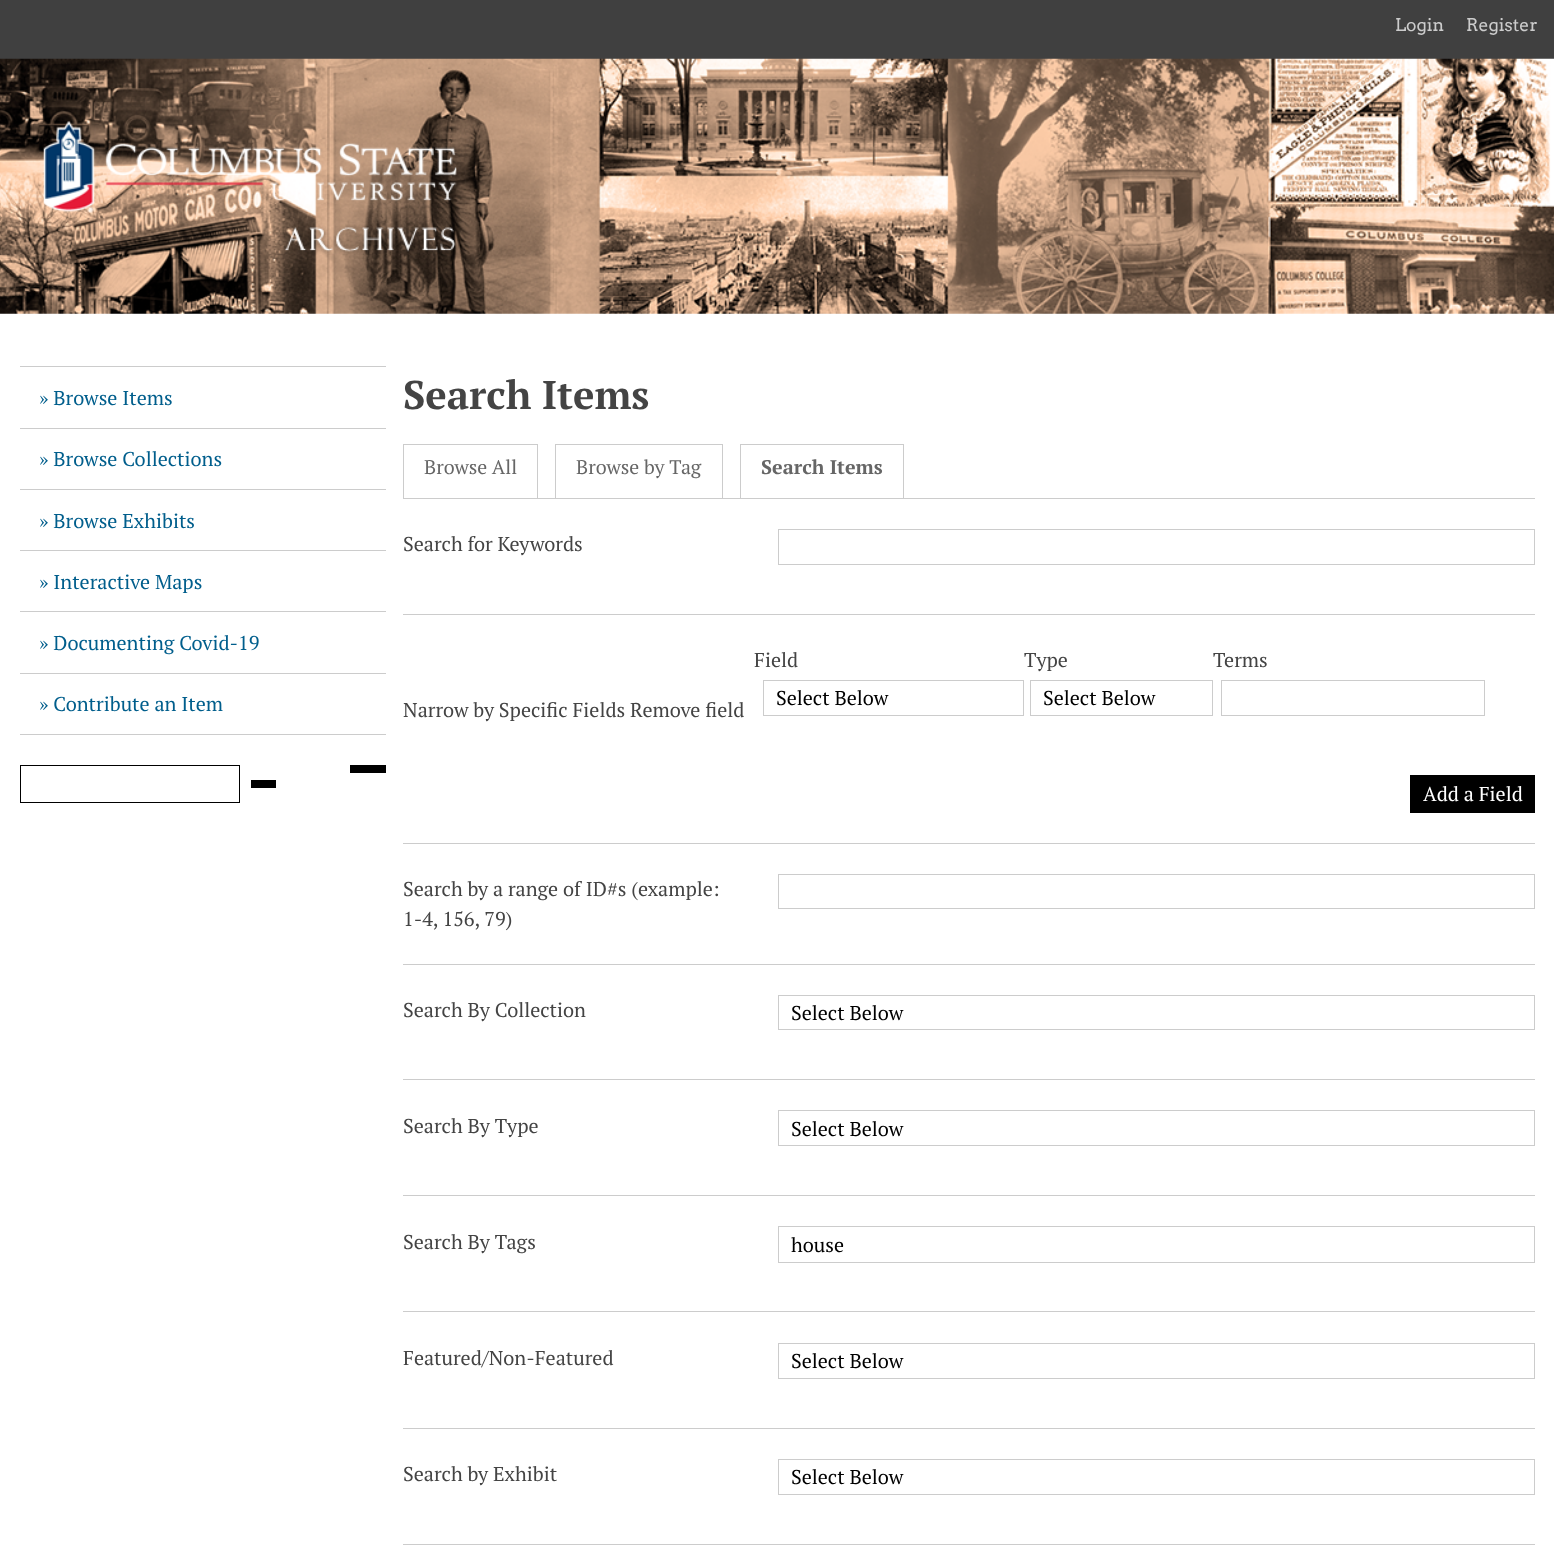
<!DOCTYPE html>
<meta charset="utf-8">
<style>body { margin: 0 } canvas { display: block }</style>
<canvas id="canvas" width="1554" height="1554"></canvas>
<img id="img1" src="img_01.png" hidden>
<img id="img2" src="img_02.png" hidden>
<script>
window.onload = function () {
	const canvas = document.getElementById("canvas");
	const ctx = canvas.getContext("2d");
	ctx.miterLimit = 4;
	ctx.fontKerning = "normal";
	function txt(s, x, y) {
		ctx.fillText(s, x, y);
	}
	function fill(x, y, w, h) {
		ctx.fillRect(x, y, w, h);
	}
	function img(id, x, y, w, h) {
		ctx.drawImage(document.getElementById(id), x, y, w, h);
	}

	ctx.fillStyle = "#FFFFFF";
	fill(0, 0, 1554, 1554);
	ctx.fillStyle = "#404040";
	fill(0, 0, 1554, 59);
	img("img1", 0, 58, 1554, 256);
	img("img2", 43, 121, 416, 134);
	ctx.fillStyle = "#CCCCCC";
	fill(20, 366, 366, 1);
	fill(20, 428, 366, 1);
	fill(20, 489, 366, 1);
	fill(20, 550, 366, 1);
	fill(20, 611, 366, 1);
	fill(20, 673, 366, 1);
	fill(20, 734, 366, 1);
	ctx.strokeStyle = "#000000";
	ctx.strokeRect(20.5, 765.5, 219, 37);
	ctx.fillStyle = "#000000";
	fill(350, 765, 36, 8);
	fill(251, 780, 25, 8);
	ctx.fillStyle = "#CCCCCC";
	fill(538, 498, 997, 1);
	ctx.strokeStyle = "#CCCCCC";
	ctx.strokeRect(403.5, 444.5, 134, 54);
	ctx.strokeRect(555.5, 444.5, 167, 54);
	fill(740, 444, 164, 1);
	fill(903, 444, 1, 54);
	fill(740, 444, 1, 54);
	fill(403, 614, 1132, 1);
	ctx.strokeRect(778.5, 529.5, 756, 35);
	fill(403, 843, 1132, 1);
	ctx.strokeRect(763.5, 680.5, 260, 35);
	ctx.strokeRect(1030.5, 680.5, 182, 35);
	ctx.strokeRect(1221.5, 680.5, 263, 35);
	ctx.fillStyle = "#000000";
	fill(1410, 775, 125, 38);
	ctx.fillStyle = "#CCCCCC";
	fill(403, 964, 1132, 1);
	ctx.strokeRect(778.5, 874.5, 756, 34);
	fill(403, 1079, 1132, 1);
	ctx.strokeRect(778.5, 995.5, 756, 34);
	fill(403, 1195, 1132, 1);
	ctx.strokeRect(778.5, 1110.5, 756, 35);
	fill(403, 1311, 1132, 1);
	ctx.strokeRect(778.5, 1226.5, 756, 36);
	fill(403, 1428, 1132, 1);
	ctx.strokeRect(778.5, 1343.5, 756, 35);
	fill(403, 1544, 1132, 1);
	ctx.strokeRect(778.5, 1459.5, 756, 35);
	ctx.font = "17.5px Arvo";
	txt("Login", 1395, 31);
	txt("Register", 1466, 31);
	ctx.font = "20px PT Serif";
	ctx.fillStyle = "#005E8C";
	txt("» Browse Items", 39, 405);
	txt("» Browse Collections", 39, 466);
	txt("» Browse Exhibits", 39, 528);
	txt("» Interactive Maps", 39, 589);
	txt("» Documenting Covid-19", 39, 650);
	txt("» Contribute an Item", 39, 711);
	ctx.font = "bold 40px PT Serif";
	ctx.fillStyle = "#444444";
	txt("Search Items", 403, 409);
	ctx.font = "19.75px PT Serif";
	ctx.fillStyle = "#666666";
	txt("Browse All", 424, 474);
	txt("Browse by Tag", 576, 474);
	ctx.font = "bold 19.75px PT Serif";
	txt("Search Items", 761, 474);
	ctx.font = "20px PT Serif";
	ctx.fillStyle = "#444444";
	txt("Search for Keywords", 403, 551);
	txt("Field", 754, 667);
	ctx.fillStyle = "#000000";
	txt("Select Below", 776, 705);
	ctx.fillStyle = "#444444";
	txt("Type", 1024, 667);
	ctx.fillStyle = "#000000";
	txt("Select Below", 1043, 705);
	ctx.fillStyle = "#444444";
	txt("Terms", 1213, 667);
	txt("Narrow by Specific Fields Remove field", 403, 717);
	ctx.fillStyle = "#FFFFFF";
	txt("Add a Field", 1423, 801);
	ctx.fillStyle = "#444444";
	txt("Search by a range of ID#s (example:", 403, 896);
	txt("1-4, 156, 79)", 403, 926);
	txt("Search By Collection", 403, 1017);
	ctx.fillStyle = "#000000";
	txt("Select Below", 791, 1020);
	ctx.fillStyle = "#444444";
	txt("Search By Type", 403, 1133);
	ctx.fillStyle = "#000000";
	txt("Select Below", 791, 1136);
	ctx.fillStyle = "#444444";
	txt("Search By Tags", 403, 1249);
	ctx.fillStyle = "#000000";
	txt("house", 791, 1252);
	ctx.fillStyle = "#444444";
	txt("Featured/Non-Featured", 403, 1365);
	ctx.fillStyle = "#000000";
	txt("Select Below", 791, 1368);
	ctx.fillStyle = "#444444";
	txt("Search by Exhibit", 403, 1481);
	ctx.fillStyle = "#000000";
	txt("Select Below", 791, 1484);
};
</script>
